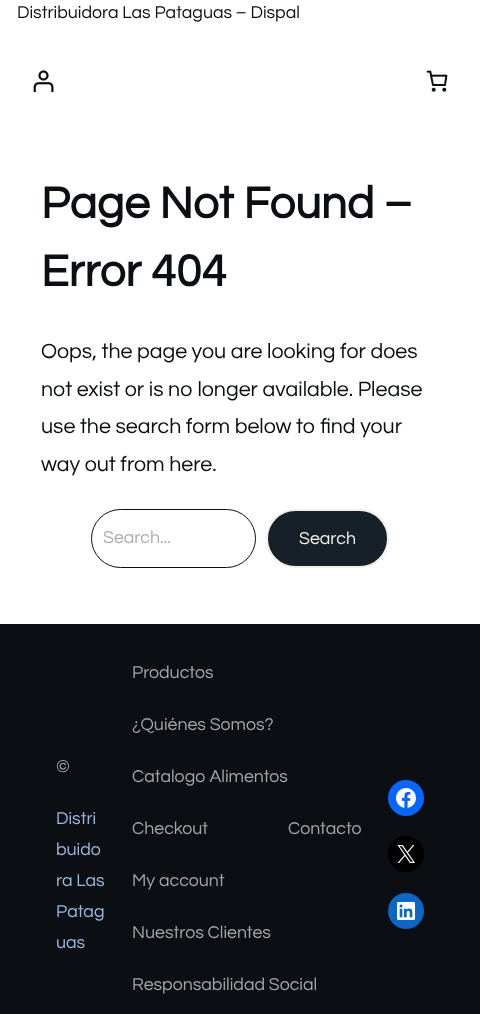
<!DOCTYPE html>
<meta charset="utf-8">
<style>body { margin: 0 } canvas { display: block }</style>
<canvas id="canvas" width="480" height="1014"></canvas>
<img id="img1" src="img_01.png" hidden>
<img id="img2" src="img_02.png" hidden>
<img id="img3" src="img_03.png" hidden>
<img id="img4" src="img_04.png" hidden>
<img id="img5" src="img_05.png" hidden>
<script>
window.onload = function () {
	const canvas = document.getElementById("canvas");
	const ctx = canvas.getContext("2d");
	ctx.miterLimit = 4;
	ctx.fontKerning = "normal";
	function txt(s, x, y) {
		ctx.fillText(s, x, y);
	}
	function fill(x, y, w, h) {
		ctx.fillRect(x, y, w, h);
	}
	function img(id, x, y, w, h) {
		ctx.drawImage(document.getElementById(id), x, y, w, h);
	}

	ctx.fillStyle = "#FFFFFF";
	fill(0, 0, 480, 1014);
	img("img1", 33, 70, 21, 23);
	img("img2", 426, 70, 22, 22);
	ctx.beginPath();
	ctx.roundRect(91.5, 509.5, 164, 58, 29);
	ctx.strokeStyle = "#0B0F14";
	ctx.stroke();
	ctx.fillStyle = "#171F29";
	ctx.beginPath();
	ctx.roundRect(267, 510, 121, 57, 28.5);
	ctx.fill();
	ctx.strokeStyle = "#F1EEEB";
	ctx.lineWidth = 2;
	ctx.stroke();
	ctx.fillStyle = "#0B0F14";
	fill(0, 624, 480, 390);
	ctx.fillStyle = "#0866FF";
	ctx.beginPath();
	ctx.arc(406, 798, 18, 0, Math.PI * 2);
	ctx.fill();
	img("img3", 396, 788, 20, 20);
	ctx.fillStyle = "#000000";
	ctx.beginPath();
	ctx.arc(406, 854, 18, 0, Math.PI * 2);
	ctx.fill();
	img("img4", 397, 845, 18, 18);
	ctx.fillStyle = "#0D66C2";
	ctx.beginPath();
	ctx.arc(406, 911, 18, 0, Math.PI * 2);
	ctx.fill();
	img("img5", 397, 902, 18, 18);
	ctx.font = "17.75px Questrial";
	ctx.fillStyle = "#0B0F14";
	txt("Distribuidora Las Pataguas – Dispal", 17, 18);
	ctx.font = "bold 45.75px Questrial";
	txt("Page Not Found –", 41, 218);
	txt("Error 404", 41, 286);
	ctx.font = "21.4px Questrial";
	txt("Oops, the page you are looking for does", 41, 358);
	txt("not exist or is no longer available. Please", 41, 396);
	txt("use the search form below to find your", 41, 433);
	txt("way out from here.", 41, 471);
	ctx.font = "17.75px Questrial";
	ctx.fillStyle = "#ACACAC";
	txt("Search...", 103, 543);
	ctx.fillStyle = "#F1EEEB";
	txt("Search", 299, 544);
	ctx.fillStyle = "#A5A5A5";
	txt("©", 56, 772);
	ctx.fillStyle = "#9DB9DE";
	txt("Distri", 56, 824);
	txt("buido", 56, 855);
	txt("ra Las", 56, 886);
	txt("Patag", 56, 917);
	txt("uas", 56, 948);
	ctx.fillStyle = "#A5A5A5";
	txt("Productos", 132, 678);
	txt("¿Quiénes Somos?", 132, 730);
	txt("Catalogo Alimentos", 132, 782);
	txt("Checkout", 132, 834);
	txt("Contacto", 288, 834);
	txt("My account", 132, 886);
	txt("Nuestros Clientes", 132, 938);
	txt("Responsabilidad Social", 132, 990);
};
</script>
